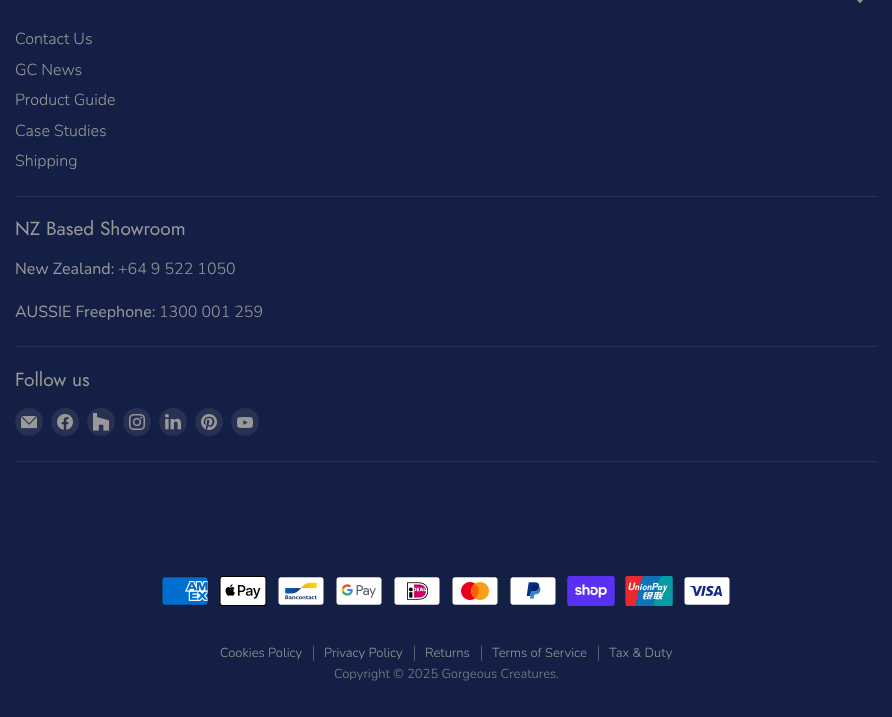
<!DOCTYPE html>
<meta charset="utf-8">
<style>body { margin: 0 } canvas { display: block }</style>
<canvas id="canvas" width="892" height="717"></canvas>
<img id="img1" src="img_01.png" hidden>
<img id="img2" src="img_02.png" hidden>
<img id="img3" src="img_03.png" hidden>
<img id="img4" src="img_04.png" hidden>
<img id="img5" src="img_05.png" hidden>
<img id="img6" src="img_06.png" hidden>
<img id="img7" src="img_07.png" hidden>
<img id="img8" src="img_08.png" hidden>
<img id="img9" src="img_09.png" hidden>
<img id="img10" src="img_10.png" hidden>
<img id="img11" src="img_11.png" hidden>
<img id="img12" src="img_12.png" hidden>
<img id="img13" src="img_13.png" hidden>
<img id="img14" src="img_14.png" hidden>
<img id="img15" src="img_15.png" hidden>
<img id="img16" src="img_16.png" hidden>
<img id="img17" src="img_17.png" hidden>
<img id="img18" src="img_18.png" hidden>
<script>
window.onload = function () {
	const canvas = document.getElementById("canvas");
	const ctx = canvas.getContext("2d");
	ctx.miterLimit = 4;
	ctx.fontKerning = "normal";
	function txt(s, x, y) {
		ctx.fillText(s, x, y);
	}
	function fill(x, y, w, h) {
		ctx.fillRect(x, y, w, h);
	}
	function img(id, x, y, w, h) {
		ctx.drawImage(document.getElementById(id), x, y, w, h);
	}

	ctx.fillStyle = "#141F45";
	fill(0, 0, 892, 717);
	ctx.fillStyle = "#283152";
	fill(15, 196, 862, 1);
	img("img1", 857, 0, 6, 3);
	fill(15, 346, 862, 1);
	fill(15, 461, 862, 1);
	ctx.beginPath();
	ctx.arc(29, 422, 14, 0, Math.PI * 2);
	ctx.fill();
	img("img2", 21, 416, 16, 13);
	ctx.beginPath();
	ctx.arc(65, 422, 14, 0, Math.PI * 2);
	ctx.fill();
	img("img3", 57, 414, 16, 16);
	ctx.beginPath();
	ctx.arc(101, 422, 14, 0, Math.PI * 2);
	ctx.fill();
	img("img4", 93, 413, 16, 18);
	ctx.beginPath();
	ctx.arc(137, 422, 14, 0, Math.PI * 2);
	ctx.fill();
	img("img5", 129, 414, 16, 16);
	ctx.beginPath();
	ctx.arc(173, 422, 14, 0, Math.PI * 2);
	ctx.fill();
	img("img6", 165, 414, 16, 16);
	ctx.beginPath();
	ctx.arc(209, 422, 14, 0, Math.PI * 2);
	ctx.fill();
	img("img7", 201, 414, 16, 16);
	ctx.beginPath();
	ctx.arc(245, 422, 14, 0, Math.PI * 2);
	ctx.fill();
	img("img8", 237, 417, 16, 11);
	img("img9", 162, 576, 46, 30);
	img("img10", 219, 576, 48, 30);
	img("img11", 278, 576, 46, 30);
	img("img12", 336, 576, 46, 30);
	img("img13", 394, 576, 46, 30);
	img("img14", 452, 576, 46, 30);
	img("img15", 510, 576, 46, 30);
	img("img16", 567, 576, 48, 30);
	img("img17", 625, 576, 48, 30);
	img("img18", 684, 576, 46, 30);
	ctx.fillStyle = "#575C6F";
	fill(313, 646, 1, 15);
	fill(414, 646, 1, 15);
	fill(481, 646, 1, 15);
	fill(598, 646, 1, 15);
	ctx.font = "300 16px Nunito";
	ctx.fillStyle = "#999999";
	txt("Contact Us", 15, 44);
	txt("GC News", 15, 75);
	txt("Product Guide", 15, 105);
	txt("Case Studies", 15, 136);
	txt("Shipping", 15, 166);
	ctx.font = "19.1px Jost";
	txt("NZ Based Showroom", 15, 235);
	ctx.font = "16px Nunito";
	txt("New Zealand:", 15, 274);
	ctx.font = "300 16px Nunito";
	txt("+64 9 522 1050", 118, 274);
	ctx.font = "16px Nunito";
	txt("AUSSIE Freephone:", 15, 317);
	ctx.font = "300 16px Nunito";
	txt("1300 001 259", 159, 317);
	ctx.font = "19.1px Jost";
	txt("Follow us", 15, 386);
	ctx.font = "300 13px Nunito";
	txt("Cookies Policy", 220, 657);
	txt("Privacy Policy", 324, 657);
	txt("Returns", 425, 657);
	txt("Terms of Service", 492, 657);
	txt("Tax & Duty", 609, 657);
	ctx.fillStyle = "#7E8188";
	txt("Copyright © 2025 Gorgeous Creatures.", 334, 678);
};
</script>
